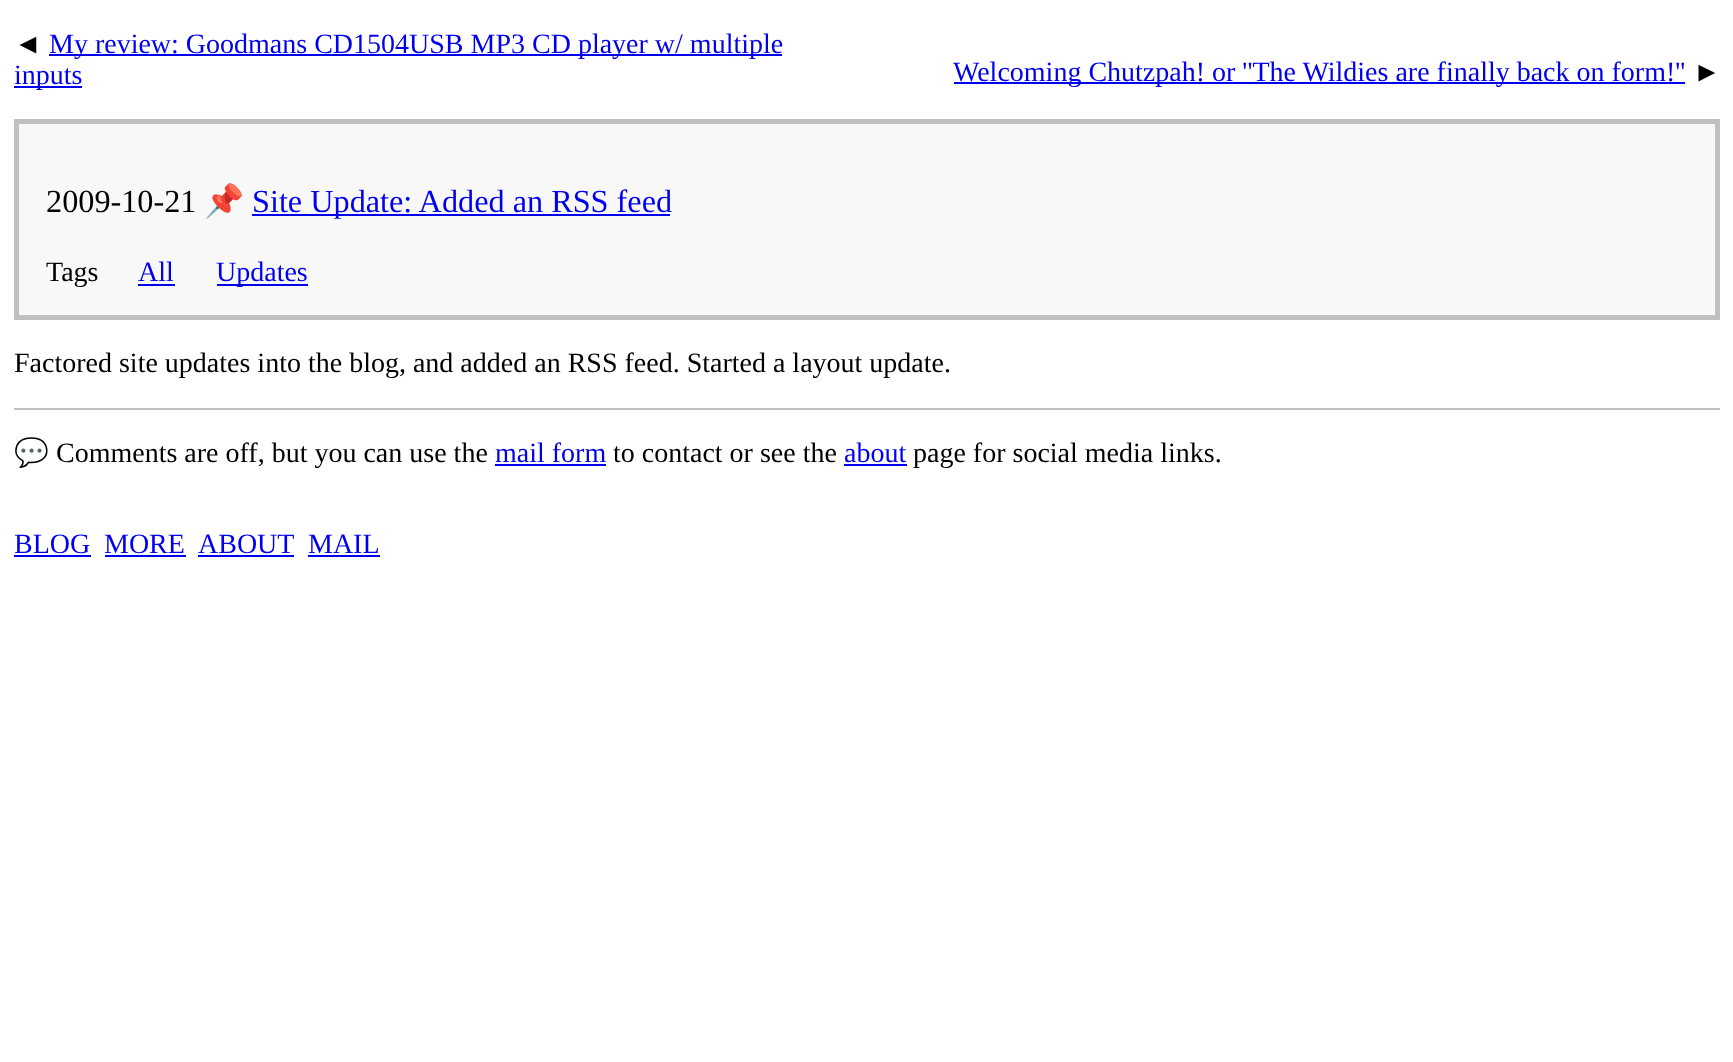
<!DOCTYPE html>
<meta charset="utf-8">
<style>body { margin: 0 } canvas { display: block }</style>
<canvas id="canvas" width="1733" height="1062"></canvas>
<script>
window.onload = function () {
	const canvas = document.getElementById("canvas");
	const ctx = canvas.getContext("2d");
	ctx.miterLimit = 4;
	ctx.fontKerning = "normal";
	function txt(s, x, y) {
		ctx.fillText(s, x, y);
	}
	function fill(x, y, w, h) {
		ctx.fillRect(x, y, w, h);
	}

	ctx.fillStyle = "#FFFFFF";
	fill(0, 0, 1733, 1062);
	ctx.fillStyle = "#0000EE";
	fill(49, 54, 733, 2);
	fill(14, 86, 68, 2);
	fill(954, 82, 731, 2);
	ctx.fillStyle = "#F8F8F8";
	ctx.beginPath();
	ctx.rect(16.5, 121.5, 1701, 196);
	ctx.fill();
	ctx.strokeStyle = "#C0C0C0";
	ctx.lineWidth = 5;
	ctx.stroke();
	ctx.fillStyle = "#0000EE";
	fill(252, 214, 418, 2);
	fill(138, 284, 37, 2);
	fill(217, 284, 91, 2);
	ctx.fillStyle = "#C0C0C0";
	fill(14, 408, 1706, 2);
	ctx.fillStyle = "#0000EE";
	fill(495, 464, 111, 2);
	fill(844, 464, 63, 2);
	fill(14, 555, 77, 2);
	fill(105, 555, 81, 2);
	fill(198, 555, 96, 2);
	fill(308, 555, 72, 2);
	ctx.font = "28px Liberation Serif";
	ctx.fillStyle = "#000000";
	txt("◄", 14, 53);
	ctx.fillStyle = "#0000EE";
	txt("My review: Goodmans CD1504USB MP3 CD player w/ multiple", 49, 53);
	txt("inputs", 14, 84);
	txt("Welcoming Chutzpah! or ''The Wildies are finally back on form!''", 953, 81);
	ctx.fillStyle = "#000000";
	txt("►", 1693, 81);
	ctx.font = "32.25px Liberation Serif";
	txt("2009-10-21", 46, 212);
	ctx.font = "32.25px Noto Color Emoji";
	txt("📌", 204, 212);
	ctx.font = "32.25px Liberation Serif";
	ctx.fillStyle = "#0000EE";
	txt("Site Update: Added an RSS feed", 252, 212);
	ctx.font = "28px Liberation Serif";
	ctx.fillStyle = "#000000";
	txt("Tags", 46, 281);
	ctx.fillStyle = "#0000EE";
	txt("All", 138, 281);
	txt("Updates", 216, 281);
	ctx.fillStyle = "#000000";
	txt("Factored site updates into the blog, and added an RSS feed. Started a layout update.", 14, 372);
	ctx.font = "28px Noto Color Emoji";
	txt("💬", 14, 462);
	ctx.font = "28px Liberation Serif";
	txt("Comments are off, but you can use the", 56, 462);
	ctx.fillStyle = "#0000EE";
	txt("mail form", 495, 462);
	ctx.fillStyle = "#000000";
	txt("to contact or see the", 613, 462);
	ctx.fillStyle = "#0000EE";
	txt("about", 844, 462);
	ctx.fillStyle = "#000000";
	txt("page for social media links.", 913, 462);
	ctx.fillStyle = "#0000EE";
	txt("BLOG", 14, 553);
	txt("MORE", 104, 553);
	txt("ABOUT", 198, 553);
	txt("MAIL", 308, 553);
};
</script>
